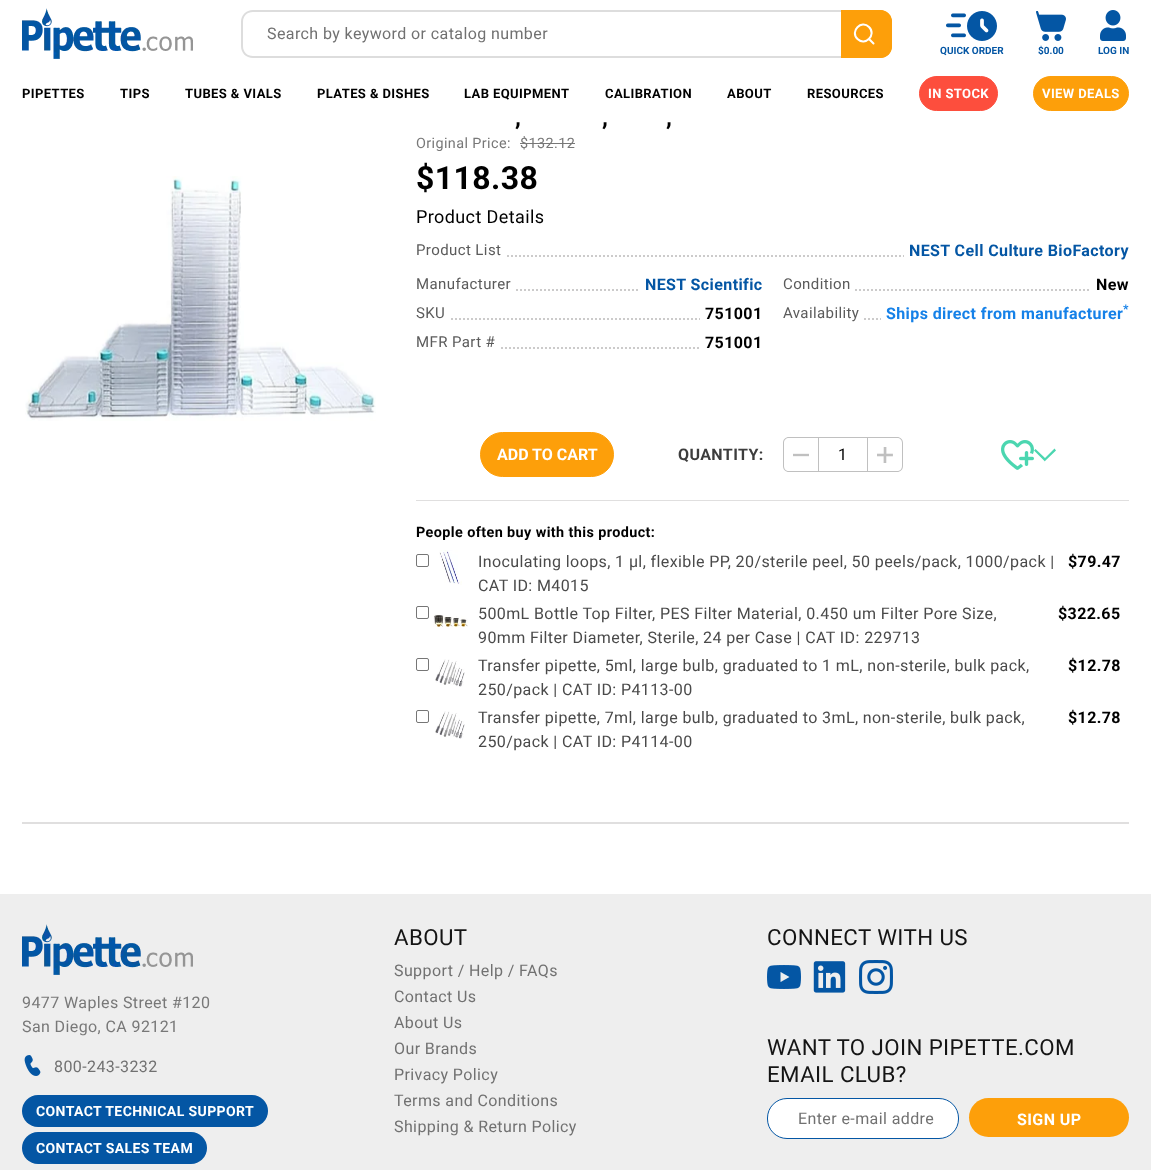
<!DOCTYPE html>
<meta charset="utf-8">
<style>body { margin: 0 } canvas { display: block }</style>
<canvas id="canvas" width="1166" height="1170"></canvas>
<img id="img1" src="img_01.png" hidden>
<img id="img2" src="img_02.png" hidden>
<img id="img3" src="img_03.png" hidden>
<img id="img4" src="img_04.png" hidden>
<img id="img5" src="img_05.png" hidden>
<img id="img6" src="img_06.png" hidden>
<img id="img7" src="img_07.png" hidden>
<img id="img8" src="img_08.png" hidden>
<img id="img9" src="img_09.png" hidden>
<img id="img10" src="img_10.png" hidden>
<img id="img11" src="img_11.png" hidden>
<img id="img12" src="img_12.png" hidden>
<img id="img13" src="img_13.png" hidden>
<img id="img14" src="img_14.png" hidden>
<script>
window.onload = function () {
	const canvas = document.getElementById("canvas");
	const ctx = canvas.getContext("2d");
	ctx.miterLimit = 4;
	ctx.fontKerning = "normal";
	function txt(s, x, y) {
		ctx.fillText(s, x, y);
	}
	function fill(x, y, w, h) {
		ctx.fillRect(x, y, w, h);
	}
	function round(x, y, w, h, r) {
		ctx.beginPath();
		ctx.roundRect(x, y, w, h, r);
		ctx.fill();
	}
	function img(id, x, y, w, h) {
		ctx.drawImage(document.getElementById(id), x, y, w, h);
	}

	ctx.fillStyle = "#FFFFFF";
	fill(0, 0, 1166, 1170);
	img("img1", 22, 8, 171, 51);
	ctx.fillStyle = "#DDDDDD";
	ctx.beginPath();
	ctx.moveTo(253, 10);
	ctx.lineTo(841, 10);
	ctx.lineTo(841, 58);
	ctx.lineTo(253, 58);
	ctx.bezierCurveTo(246, 58, 241, 53, 241, 46);
	ctx.lineTo(241, 22);
	ctx.bezierCurveTo(241, 15, 246, 10, 253, 10);
	ctx.closePath();
	ctx.moveTo(253, 12);
	ctx.lineTo(841, 12);
	ctx.lineTo(841, 56);
	ctx.lineTo(253, 56);
	ctx.bezierCurveTo(247, 56, 243, 52, 243, 46);
	ctx.lineTo(243, 22);
	ctx.bezierCurveTo(243, 16, 247, 12, 253, 12);
	ctx.closePath();
	ctx.fill("evenodd");
	ctx.fillStyle = "#FD9F0A";
	ctx.beginPath();
	ctx.roundRect(841, 10, 51, 48, [0, 12, 12, 0]);
	ctx.fill();
	ctx.beginPath();
	ctx.moveTo(841, 10);
	ctx.lineTo(880, 10);
	ctx.bezierCurveTo(887, 10, 892, 15, 892, 22);
	ctx.lineTo(892, 46);
	ctx.bezierCurveTo(892, 53, 887, 58, 880, 58);
	ctx.lineTo(841, 58);
	ctx.closePath();
	ctx.moveTo(841, 12);
	ctx.lineTo(880, 12);
	ctx.bezierCurveTo(886, 12, 890, 16, 890, 22);
	ctx.lineTo(890, 46);
	ctx.bezierCurveTo(890, 52, 886, 56, 880, 56);
	ctx.lineTo(841, 56);
	ctx.closePath();
	ctx.fill("evenodd");
	ctx.beginPath();
	ctx.moveTo(869, 27);
	ctx.bezierCurveTo(877, 35, 865, 46.5, 857.5, 39);
	ctx.bezierCurveTo(849.5, 31, 861.5, 19.5, 869, 27);
	ctx.closePath();
	ctx.moveTo(873.5, 43.5);
	ctx.lineTo(869, 39);
	ctx.strokeStyle = "#FFFFFF";
	ctx.lineWidth = 2;
	ctx.lineCap = "round";
	ctx.lineJoin = "round";
	ctx.stroke();
	img("img2", 946, 11, 51, 30);
	img("img3", 1036, 11, 30, 30);
	img("img4", 1100, 10, 26, 31);
	ctx.fillStyle = "#FD4E3D";
	ctx.beginPath();
	ctx.roundRect(919.5, 76.5, 78, 34, 17);
	ctx.fill();
	ctx.strokeStyle = "#FD4E3D";
	ctx.lineWidth = 1;
	ctx.lineJoin = "miter";
	ctx.stroke();
	ctx.fillStyle = "#FD9F0A";
	ctx.beginPath();
	ctx.roundRect(1033.5, 76.5, 95, 34, 17);
	ctx.fill();
	ctx.strokeStyle = "#FD9F0A";
	ctx.stroke();
	img("img5", 25, 176, 351, 245);
	ctx.fillStyle = "#787878";
	fill(520, 143, 55, 1);
	ctx.beginPath();
	ctx.moveTo(507, 256);
	ctx.lineTo(904, 256);
	ctx.strokeStyle = "#CCCBCB";
	ctx.lineWidth = 2;
	ctx.lineCap = "butt";
	ctx.setLineDash([2, 2]);
	ctx.stroke();
	ctx.beginPath();
	ctx.moveTo(516, 290);
	ctx.lineTo(640, 290);
	ctx.stroke();
	ctx.beginPath();
	ctx.moveTo(451, 319);
	ctx.lineTo(700, 319);
	ctx.stroke();
	ctx.beginPath();
	ctx.moveTo(501, 348);
	ctx.lineTo(700, 348);
	ctx.stroke();
	ctx.beginPath();
	ctx.moveTo(855, 290);
	ctx.lineTo(1091, 290);
	ctx.stroke();
	ctx.beginPath();
	ctx.moveTo(864, 319);
	ctx.lineTo(881, 319);
	ctx.stroke();
	ctx.fillStyle = "#FD9F0A";
	ctx.beginPath();
	ctx.roundRect(480.5, 432.5, 133, 44, 22);
	ctx.fill();
	ctx.strokeStyle = "#FD9F0A";
	ctx.lineWidth = 1;
	ctx.setLineDash([]);
	ctx.stroke();
	ctx.fillStyle = "#C0C0C0";
	ctx.beginPath();
	ctx.moveTo(789, 437);
	ctx.lineTo(818, 437);
	ctx.lineTo(818, 472);
	ctx.lineTo(789, 472);
	ctx.bezierCurveTo(785.5, 472, 783, 469.5, 783, 466);
	ctx.lineTo(783, 443);
	ctx.bezierCurveTo(783, 439.5, 785.5, 437, 789, 437);
	ctx.closePath();
	ctx.moveTo(789, 438);
	ctx.lineTo(818, 438);
	ctx.lineTo(818, 471);
	ctx.lineTo(789, 471);
	ctx.bezierCurveTo(786, 471, 784, 469, 784, 466);
	ctx.lineTo(784, 443);
	ctx.bezierCurveTo(784, 440, 786, 438, 789, 438);
	ctx.closePath();
	ctx.fill("evenodd");
	ctx.strokeStyle = "#C0C0C0";
	ctx.strokeRect(818.5, 437.5, 49, 34);
	ctx.beginPath();
	ctx.moveTo(868, 437);
	ctx.lineTo(897, 437);
	ctx.bezierCurveTo(900.5, 437, 903, 439.5, 903, 443);
	ctx.lineTo(903, 466);
	ctx.bezierCurveTo(903, 469.5, 900.5, 472, 897, 472);
	ctx.lineTo(868, 472);
	ctx.closePath();
	ctx.moveTo(868, 438);
	ctx.lineTo(897, 438);
	ctx.bezierCurveTo(900, 438, 902, 440, 902, 443);
	ctx.lineTo(902, 466);
	ctx.bezierCurveTo(902, 469, 900, 471, 897, 471);
	ctx.lineTo(868, 471);
	ctx.closePath();
	ctx.fill("evenodd");
	img("img6", 1001, 440, 33, 30);
	ctx.fillStyle = "#4BD6B0";
	ctx.beginPath();
	ctx.moveTo(1045, 461);
	ctx.lineTo(1045, 461.5);
	ctx.lineTo(1034, 450.5);
	ctx.lineTo(1035.5, 449);
	ctx.lineTo(1045, 458);
	ctx.lineTo(1054.5, 448.5);
	ctx.lineTo(1056, 450.5);
	ctx.closePath();
	ctx.fill();
	ctx.fillStyle = "#E0DFDF";
	fill(416, 500, 713, 1);
	ctx.beginPath();
	ctx.roundRect(416.5, 554.5, 12, 12, 1.5);
	ctx.strokeStyle = "#767676";
	ctx.stroke();
	img("img7", 439, 550, 23, 35);
	ctx.beginPath();
	ctx.roundRect(416.5, 606.5, 12, 12, 1.5);
	ctx.stroke();
	img("img8", 433, 614, 35, 13);
	ctx.beginPath();
	ctx.roundRect(416.5, 658.5, 12, 12, 1.5);
	ctx.stroke();
	img("img9", 435, 659, 30, 28);
	ctx.beginPath();
	ctx.roundRect(416.5, 710.5, 12, 12, 1.5);
	ctx.stroke();
	img("img9", 435, 711, 30, 28);
	fill(22, 822, 1107, 2);
	ctx.fillStyle = "#EEEEEE";
	fill(0, 894, 1151, 276);
	img("img10", 22, 924, 171, 51);
	img("img11", 24, 1055, 17, 21);
	ctx.fillStyle = "#0456A4";
	round(22, 1095, 246, 32, 16);
	round(22, 1132, 185, 32, 16);
	img("img12", 767, 965, 34, 24);
	img("img13", 813, 961, 33, 32);
	img("img14", 859, 960, 34, 34);
	ctx.fillStyle = "#FFFFFF";
	ctx.beginPath();
	ctx.roundRect(767.5, 1098.5, 191, 40, 19.5);
	ctx.fill();
	ctx.strokeStyle = "#0456A4";
	ctx.stroke();
	ctx.fillStyle = "#FD9F0A";
	round(969, 1098, 160, 39, 19.5);
	ctx.letterSpacing = "0.4px";
	ctx.font = "16px Roboto";
	ctx.fillStyle = "#717171";
	txt("Search by keyword or catalog number", 267, 39);
	ctx.letterSpacing = "0px";
	ctx.font = "bold 10px Roboto";
	ctx.fillStyle = "#0456A4";
	txt("QUICK ORDER", 940, 54);
	txt("$0.00", 1038, 54);
	txt("LOG IN", 1098, 54);
	ctx.letterSpacing = "0.4px";
	ctx.font = "bold 13px Roboto";
	ctx.fillStyle = "#000000";
	txt("PIPETTES", 22, 98);
	txt("TIPS", 120, 98);
	txt("TUBES & VIALS", 185, 98);
	txt("PLATES & DISHES", 317, 98);
	txt("LAB EQUIPMENT", 464, 98);
	txt("CALIBRATION", 605, 98);
	txt("ABOUT", 727, 98);
	txt("RESOURCES", 807, 98);
	ctx.fillStyle = "#FFFFFF";
	txt("IN STOCK", 928, 98);
	txt("VIEW DEALS", 1042, 98);
	ctx.letterSpacing = "0px";
	ctx.font = "bold 24px Roboto";
	ctx.fillStyle = "#000000";
	txt(",", 515, 125);
	txt(",", 602, 125);
	txt(",", 666, 125);
	ctx.letterSpacing = "0.4px";
	ctx.font = "14.4px Roboto";
	ctx.fillStyle = "#787878";
	txt("Original Price:", 416, 148);
	txt("$132.12", 520, 148);
	ctx.font = "bold 32px Roboto";
	ctx.fillStyle = "#000000";
	txt("$118.38", 416, 189);
	ctx.font = "18px Roboto";
	txt("Product Details", 416, 223);
	ctx.font = "15px Roboto";
	ctx.fillStyle = "#5B5B5B";
	txt("Product List", 416, 255);
	ctx.font = "bold 16px Roboto";
	ctx.fillStyle = "#0456A4";
	txt("NEST Cell Culture BioFactory", 909, 256);
	ctx.font = "15px Roboto";
	ctx.fillStyle = "#5B5B5B";
	txt("Manufacturer", 416, 289);
	ctx.font = "bold 16px Roboto";
	ctx.fillStyle = "#0456A4";
	txt("NEST Scientific", 645, 290);
	ctx.font = "15px Roboto";
	ctx.fillStyle = "#5B5B5B";
	txt("SKU", 416, 318);
	ctx.font = "bold 16px Roboto";
	ctx.fillStyle = "#000000";
	txt("751001", 705, 319);
	ctx.font = "15px Roboto";
	ctx.fillStyle = "#5B5B5B";
	txt("MFR Part #", 416, 347);
	ctx.font = "bold 16px Roboto";
	ctx.fillStyle = "#000000";
	txt("751001", 705, 348);
	ctx.font = "15px Roboto";
	ctx.fillStyle = "#5B5B5B";
	txt("Condition", 783, 289);
	ctx.font = "bold 16px Roboto";
	ctx.fillStyle = "#000000";
	txt("New", 1096, 290);
	ctx.font = "15px Roboto";
	ctx.fillStyle = "#5B5B5B";
	txt("Availability", 783, 318);
	ctx.font = "bold 16px Roboto";
	ctx.fillStyle = "#1581E8";
	txt("Ships direct from manufacturer", 886, 319);
	ctx.font = "bold 12px Roboto";
	txt("*", 1123, 313);
	ctx.letterSpacing = "0px";
	ctx.font = "bold 16px Roboto";
	ctx.fillStyle = "#FFFFFF";
	txt("ADD TO CART", 497, 460);
	ctx.letterSpacing = "0.4px";
	ctx.fillStyle = "#3D3D3D";
	txt("QUANTITY:", 678, 460);
	ctx.font = "16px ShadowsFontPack";
	ctx.fillStyle = "#C0C0C0";
	txt("<", 793, 462);
	ctx.letterSpacing = "1px";
	ctx.font = "16px Roboto";
	ctx.fillStyle = "#000000";
	txt("1", 838, 460);
	ctx.letterSpacing = "0.4px";
	ctx.font = "16px ShadowsFontPack";
	ctx.fillStyle = "#C0C0C0";
	txt("=", 877, 462);
	ctx.font = "bold 14.4px Roboto";
	ctx.fillStyle = "#000000";
	txt("People often buy with this product:", 416, 537);
	ctx.font = "16px Roboto";
	ctx.fillStyle = "#4A4A4A";
	txt("Inoculating loops, 1 µl, flexible PP, 20/sterile peel, 50 peels/pack, 1000/pack |", 478, 567);
	txt("CAT ID: M4015", 478, 591);
	ctx.font = "bold 16px Roboto";
	ctx.fillStyle = "#000000";
	txt("$79.47", 1068, 567);
	ctx.font = "16px Roboto";
	ctx.fillStyle = "#4A4A4A";
	txt("500mL Bottle Top Filter, PES Filter Material, 0.450 um Filter Pore Size,", 478, 619);
	txt("90mm Filter Diameter, Sterile, 24 per Case | CAT ID: 229713", 478, 643);
	ctx.font = "bold 16px Roboto";
	ctx.fillStyle = "#000000";
	txt("$322.65", 1058, 619);
	ctx.font = "16px Roboto";
	ctx.fillStyle = "#4A4A4A";
	txt("Transfer pipette, 5ml, large bulb, graduated to 1 mL, non-sterile, bulk pack,", 478, 671);
	txt("250/pack | CAT ID: P4113-00", 478, 695);
	ctx.font = "bold 16px Roboto";
	ctx.fillStyle = "#000000";
	txt("$12.78", 1068, 671);
	ctx.font = "16px Roboto";
	ctx.fillStyle = "#4A4A4A";
	txt("Transfer pipette, 7ml, large bulb, graduated to 3mL, non-sterile, bulk pack,", 478, 723);
	txt("250/pack | CAT ID: P4114-00", 478, 747);
	ctx.font = "bold 16px Roboto";
	ctx.fillStyle = "#000000";
	txt("$12.78", 1068, 723);
	ctx.font = "16px Roboto";
	ctx.fillStyle = "#787878";
	txt("9477 Waples Street #120", 22, 1008);
	txt("San Diego, CA 92121", 22, 1032);
	ctx.fillStyle = "#717171";
	txt("800-243-3232", 54, 1072);
	ctx.font = "bold 14px Roboto";
	ctx.fillStyle = "#FFFFFF";
	txt("CONTACT TECHNICAL SUPPORT", 36, 1116);
	txt("CONTACT SALES TEAM", 36, 1153);
	ctx.font = "22.3px Roboto";
	ctx.fillStyle = "#141414";
	txt("ABOUT", 394, 945);
	ctx.font = "16px Roboto";
	ctx.fillStyle = "#717171";
	txt("Support / Help / FAQs", 394, 976);
	txt("Contact Us", 394, 1002);
	txt("About Us", 394, 1028);
	txt("Our Brands", 394, 1054);
	txt("Privacy Policy", 394, 1080);
	txt("Terms and Conditions", 394, 1106);
	txt("Shipping & Return Policy", 394, 1132);
	ctx.font = "22.3px Roboto";
	ctx.fillStyle = "#141414";
	txt("CONNECT WITH US", 767, 945);
	txt("WANT TO JOIN PIPETTE.COM", 767, 1055);
	txt("EMAIL CLUB?", 767, 1082);
	ctx.font = "16px Roboto";
	ctx.fillStyle = "#717171";
	txt("Enter e-mail addre", 798, 1124);
	ctx.font = "bold 16px Roboto";
	ctx.fillStyle = "#FFFFFF";
	txt("SIGN UP", 1017, 1125);
};
</script>
